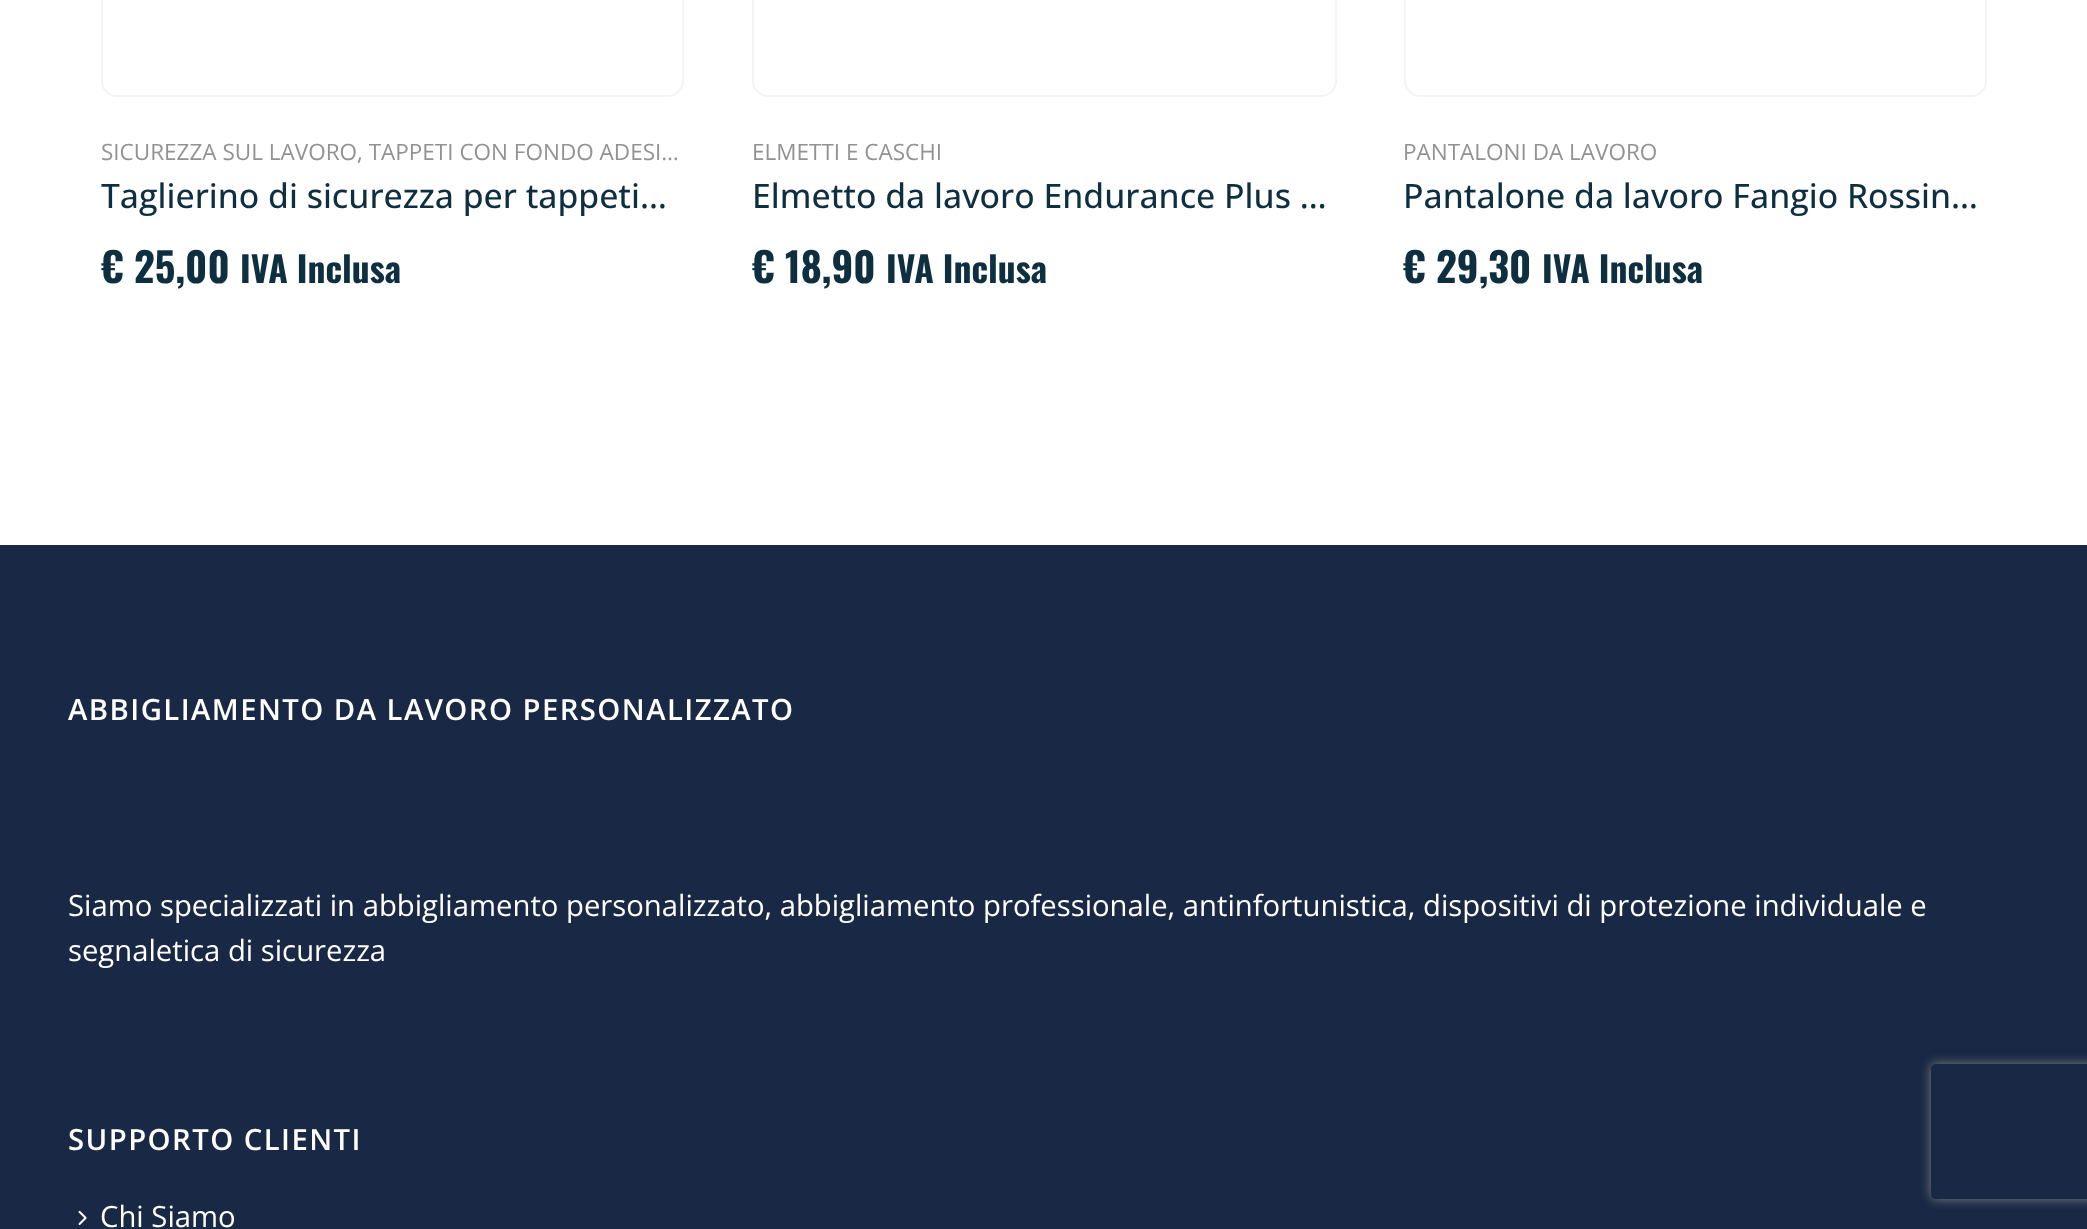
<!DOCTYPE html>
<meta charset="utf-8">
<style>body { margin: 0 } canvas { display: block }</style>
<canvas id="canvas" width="2087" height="1229"></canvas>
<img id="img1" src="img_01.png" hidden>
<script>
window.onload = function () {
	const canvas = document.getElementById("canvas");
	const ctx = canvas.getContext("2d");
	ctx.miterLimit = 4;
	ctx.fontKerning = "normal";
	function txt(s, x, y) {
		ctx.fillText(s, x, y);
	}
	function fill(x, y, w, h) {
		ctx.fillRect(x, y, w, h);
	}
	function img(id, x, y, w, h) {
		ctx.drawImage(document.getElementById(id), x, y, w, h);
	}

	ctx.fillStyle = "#FFFFFF";
	fill(0, 0, 2087, 1229);
	ctx.beginPath();
	ctx.roundRect(102, -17, 581, 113, 15);
	ctx.strokeStyle = "#F4F4F4";
	ctx.lineWidth = 2;
	ctx.stroke();
	ctx.beginPath();
	ctx.roundRect(753, -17, 583, 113, 15);
	ctx.stroke();
	ctx.beginPath();
	ctx.roundRect(1405, -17, 581, 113, 15);
	ctx.stroke();
	ctx.fillStyle = "#192945";
	fill(0, 545, 2087, 684);
	img("img1", 78, 1210, 9, 15);
	ctx.save();
	ctx.beginPath();
	ctx.moveTo(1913, 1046);
	ctx.lineTo(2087, 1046);
	ctx.lineTo(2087, 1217);
	ctx.lineTo(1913, 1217);
	ctx.closePath();
	ctx.moveTo(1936, 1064);
	ctx.lineTo(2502, 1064);
	ctx.bezierCurveTo(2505, 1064, 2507, 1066, 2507, 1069);
	ctx.lineTo(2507, 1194);
	ctx.bezierCurveTo(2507, 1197, 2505, 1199, 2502, 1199);
	ctx.lineTo(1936, 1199);
	ctx.bezierCurveTo(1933, 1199, 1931, 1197, 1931, 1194);
	ctx.lineTo(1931, 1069);
	ctx.bezierCurveTo(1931, 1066, 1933, 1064, 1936, 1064);
	ctx.closePath();
	ctx.clip("evenodd");
	ctx.fillStyle = "#808080";
	ctx.filter = "blur(5.5px)";
	ctx.beginPath();
	ctx.roundRect(1931, 1064, 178, 135, 5);
	ctx.fill();
	ctx.filter = "none";
	ctx.restore();
	ctx.font = "22.5px Open Sans";
	ctx.fillStyle = "#929292";
	txt("SICUREZZA SUL LAVORO, TAPPETI CON FONDO ADESI…", 101, 160);
	ctx.font = "500 33.75px Open Sans";
	ctx.fillStyle = "#0E2F40";
	txt("Taglierino di sicurezza per tappeti…", 101, 208);
	ctx.font = "bold 40.5px Oswald";
	txt("€ 25,00", 101, 283);
	ctx.font = "bold 35.5px Oswald";
	txt("IVA Inclusa", 240, 283);
	ctx.font = "22.5px Open Sans";
	ctx.fillStyle = "#929292";
	txt("ELMETTI E CASCHI", 752, 160);
	ctx.font = "500 33.75px Open Sans";
	ctx.fillStyle = "#0E2F40";
	txt("Elmetto da lavoro Endurance Plus …", 752, 208);
	ctx.font = "bold 40.5px Oswald";
	txt("€ 18,90", 752, 283);
	ctx.font = "bold 35.5px Oswald";
	txt("IVA Inclusa", 886, 283);
	ctx.font = "22.5px Open Sans";
	ctx.fillStyle = "#929292";
	txt("PANTALONI DA LAVORO", 1403, 160);
	ctx.font = "500 33.75px Open Sans";
	ctx.fillStyle = "#0E2F40";
	txt("Pantalone da lavoro Fangio Rossin…", 1403, 208);
	ctx.font = "bold 40.5px Oswald";
	txt("€ 29,30", 1403, 283);
	ctx.font = "bold 35.5px Oswald";
	txt("IVA Inclusa", 1542, 283);
	ctx.letterSpacing = "1.45px";
	ctx.font = "600 29.25px Open Sans";
	ctx.fillStyle = "#FFFFFF";
	txt("ABBIGLIAMENTO DA LAVORO PERSONALIZZATO", 68, 720);
	ctx.letterSpacing = "0px";
	ctx.font = "29.25px Open Sans";
	txt("Siamo specializzati in abbigliamento personalizzato, abbigliamento professionale, antinfortunistica, dispositivi di protezione individuale e", 68, 916);
	txt("segnaletica di sicurezza", 68, 961);
	ctx.letterSpacing = "1.45px";
	ctx.font = "600 29.25px Open Sans";
	txt("SUPPORTO CLIENTI", 68, 1150);
	ctx.letterSpacing = "0px";
	ctx.font = "29.25px Open Sans";
	txt("Chi Siamo", 100, 1227);
};
</script>
